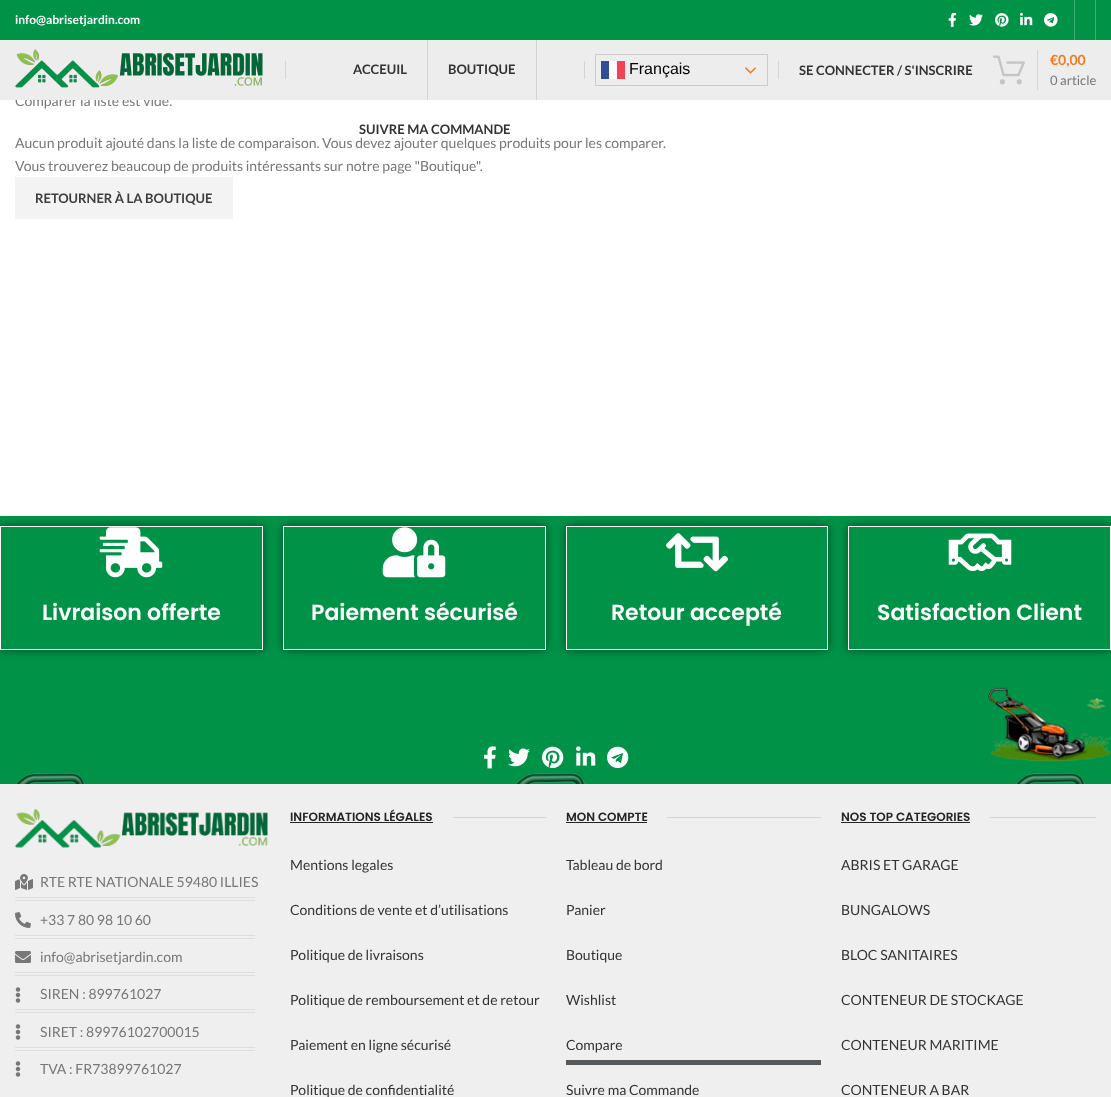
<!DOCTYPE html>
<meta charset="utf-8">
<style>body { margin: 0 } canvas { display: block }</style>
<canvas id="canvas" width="1111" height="1097"></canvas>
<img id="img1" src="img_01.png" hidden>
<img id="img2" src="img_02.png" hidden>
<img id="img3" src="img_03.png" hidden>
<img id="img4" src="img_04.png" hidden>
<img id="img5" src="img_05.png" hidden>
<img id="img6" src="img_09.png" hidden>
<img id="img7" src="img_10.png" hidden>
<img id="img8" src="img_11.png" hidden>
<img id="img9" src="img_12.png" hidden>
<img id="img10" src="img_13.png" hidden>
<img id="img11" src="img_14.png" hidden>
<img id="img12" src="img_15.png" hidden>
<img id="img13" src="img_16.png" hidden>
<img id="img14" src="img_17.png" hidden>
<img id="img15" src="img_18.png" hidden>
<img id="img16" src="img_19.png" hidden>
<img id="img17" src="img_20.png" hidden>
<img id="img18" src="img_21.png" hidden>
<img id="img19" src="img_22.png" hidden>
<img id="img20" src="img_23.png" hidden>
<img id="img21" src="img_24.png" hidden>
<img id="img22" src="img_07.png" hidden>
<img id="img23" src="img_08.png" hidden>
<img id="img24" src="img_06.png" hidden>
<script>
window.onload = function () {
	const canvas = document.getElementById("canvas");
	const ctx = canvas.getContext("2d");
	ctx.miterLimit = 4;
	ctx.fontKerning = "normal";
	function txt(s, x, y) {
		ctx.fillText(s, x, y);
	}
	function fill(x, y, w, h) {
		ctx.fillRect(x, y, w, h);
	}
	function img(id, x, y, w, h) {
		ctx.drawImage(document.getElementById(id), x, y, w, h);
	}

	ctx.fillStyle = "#FFFFFF";
	fill(0, 0, 1111, 1097);
	ctx.fillStyle = "#009348";
	fill(0, 0, 1111, 40);
	img("img1", 948, 12, 9, 15);
	img("img2", 969, 14, 14, 12);
	img("img3", 995, 13, 14, 14);
	img("img4", 1020, 12, 13, 14);
	img("img5", 1044, 13, 14, 14);
	ctx.fillStyle = "#40AE76";
	fill(1074, 0, 1, 40);
	fill(1095, 0, 1, 40);
	ctx.fillStyle = "#F3F3F3";
	fill(15, 177, 218, 42);
	ctx.fillStyle = "#009348";
	fill(0, 516, 1111, 144);
	ctx.save();
	ctx.beginPath();
	ctx.moveTo(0, 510);
	ctx.lineTo(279, 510);
	ctx.lineTo(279, 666);
	ctx.lineTo(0, 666);
	ctx.closePath();
	ctx.moveTo(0, 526);
	ctx.lineTo(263, 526);
	ctx.lineTo(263, 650);
	ctx.lineTo(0, 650);
	ctx.closePath();
	ctx.clip("evenodd");
	ctx.fillStyle = "rgba(0, 0, 0, 0.5)";
	ctx.filter = "blur(5px)";
	ctx.beginPath();
	ctx.rect(0, 526, 263, 124);
	ctx.fill();
	ctx.filter = "none";
	ctx.restore();
	ctx.strokeStyle = "#FDF8F8";
	ctx.strokeRect(0.5, 526.5, 262, 123);
	img("img6", 99, 527, 64, 51);
	ctx.save();
	ctx.beginPath();
	ctx.moveTo(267, 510);
	ctx.lineTo(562, 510);
	ctx.lineTo(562, 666);
	ctx.lineTo(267, 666);
	ctx.closePath();
	ctx.moveTo(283, 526);
	ctx.lineTo(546, 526);
	ctx.lineTo(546, 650);
	ctx.lineTo(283, 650);
	ctx.closePath();
	ctx.clip("evenodd");
	ctx.fillStyle = "rgba(0, 0, 0, 0.5)";
	ctx.filter = "blur(5px)";
	ctx.beginPath();
	ctx.rect(283, 526, 263, 124);
	ctx.fill();
	ctx.filter = "none";
	ctx.restore();
	ctx.strokeRect(283.5, 526.5, 262, 123);
	img("img7", 382, 527, 64, 51);
	ctx.save();
	ctx.beginPath();
	ctx.moveTo(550, 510);
	ctx.lineTo(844, 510);
	ctx.lineTo(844, 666);
	ctx.lineTo(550, 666);
	ctx.closePath();
	ctx.moveTo(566, 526);
	ctx.lineTo(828, 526);
	ctx.lineTo(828, 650);
	ctx.lineTo(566, 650);
	ctx.closePath();
	ctx.clip("evenodd");
	ctx.fillStyle = "rgba(0, 0, 0, 0.5)";
	ctx.filter = "blur(5px)";
	ctx.beginPath();
	ctx.rect(566, 526, 262, 124);
	ctx.fill();
	ctx.filter = "none";
	ctx.restore();
	ctx.strokeRect(566.5, 526.5, 261, 123);
	img("img8", 666, 533, 62, 39);
	ctx.save();
	ctx.beginPath();
	ctx.moveTo(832, 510);
	ctx.lineTo(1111, 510);
	ctx.lineTo(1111, 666);
	ctx.lineTo(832, 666);
	ctx.closePath();
	ctx.moveTo(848, 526);
	ctx.lineTo(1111, 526);
	ctx.lineTo(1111, 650);
	ctx.lineTo(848, 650);
	ctx.closePath();
	ctx.clip("evenodd");
	ctx.fillStyle = "rgba(0, 0, 0, 0.5)";
	ctx.filter = "blur(5px)";
	ctx.beginPath();
	ctx.rect(848, 526, 263, 124);
	ctx.fill();
	ctx.filter = "none";
	ctx.restore();
	ctx.strokeRect(848.5, 526.5, 262, 123);
	img("img9", 948, 533, 64, 38);
	fill(0, 660, 1111, 124);
	img("img10", 988, 687, 123, 75);
	img("img11", 484, 746, 12, 23);
	img("img12", 508, 748, 22, 19);
	img("img13", 542, 746, 22, 22);
	img("img14", 576, 746, 20, 20);
	img("img15", 607, 746, 22, 22);
	img("img16", 16, 773, 1069, 11);
	ctx.fillStyle = "#EFEFEF";
	fill(0, 784, 1111, 313);
	img("img17", 15, 809, 253, 39);
	img("img18", 15, 874, 18, 16);
	ctx.fillStyle = "#DDDDDD";
	fill(15, 897, 240, 1);
	fill(15, 900, 240, 1);
	img("img19", 15, 912, 16, 16);
	fill(15, 935, 240, 1);
	fill(15, 938, 240, 1);
	img("img20", 15, 951, 16, 12);
	fill(15, 972, 240, 1);
	fill(15, 975, 240, 1);
	img("img21", 15, 987, 6, 16);
	fill(15, 1009, 240, 1);
	fill(15, 1012, 240, 1);
	img("img21", 15, 1024, 6, 16);
	fill(15, 1047, 240, 1);
	fill(15, 1050, 240, 1);
	img("img21", 15, 1061, 6, 16);
	ctx.fillStyle = "#242424";
	fill(290, 822, 143, 1);
	ctx.fillStyle = "#D6D6D6";
	fill(453, 817, 93, 1);
	ctx.fillStyle = "#242424";
	fill(566, 822, 81, 1);
	ctx.fillStyle = "#D6D6D6";
	fill(667, 817, 154, 1);
	ctx.fillStyle = "#55595C";
	fill(566, 1060, 255, 5);
	ctx.fillStyle = "#242424";
	fill(841, 822, 129, 1);
	ctx.fillStyle = "#D6D6D6";
	fill(990, 817, 106, 1);
	ctx.font = "bold 12px Lato";
	ctx.fillStyle = "#FFFEFE";
	txt("info@abrisetjardin.com", 15, 24);
	ctx.font = "bold 13px Lato";
	ctx.fillStyle = "#333333";
	txt("SUIVRE MA COMMANDE", 359, 134);
	ctx.font = "14px Lato";
	ctx.fillStyle = "#777777";
	txt("Comparer la liste est vide.", 15, 106);
	ctx.fillStyle = "#EDEDED";
	fill(0, 40, 1111, 60);
	ctx.strokeStyle = "#CCCCCC";
	ctx.strokeRect(595.5, 54.5, 172, 31);
	img("img22", 745, 67, 11, 7);
	ctx.fillStyle = "#F24356";
	fill(617, 61, 8, 18);
	ctx.fillStyle = "#304E95";
	fill(601, 61, 8, 18);
	ctx.fillStyle = "#FCFCFC";
	fill(609, 61, 8, 18);
	ctx.font = "16px Liberation Sans";
	ctx.fillStyle = "#000000";
	txt("Français", 629, 74);
	ctx.font = "13px Lato";
	ctx.fillStyle = "#777777";
	txt("0 article", 1050, 85);
	img("img23", 993, 55, 32, 30);
	ctx.font = "bold 14px Lato";
	ctx.fillStyle = "#F37A1F";
	txt("€0,00", 1050, 65);
	ctx.fillStyle = "#D5D5D5";
	fill(1037, 50, 1, 40);
	ctx.font = "bold 13px Lato";
	ctx.fillStyle = "#333333";
	txt("SE CONNECTER / S'INSCRIRE", 799, 75);
	txt("BOUTIQUE", 448, 74);
	ctx.fillStyle = "#D4D4D4";
	fill(536, 40, 1, 60);
	ctx.fillStyle = "#333333";
	txt("ACCEUIL", 353, 74);
	ctx.fillStyle = "#D4D4D4";
	fill(427, 40, 1, 60);
	img("img24", 15, 49, 248, 39);
	fill(778, 61, 1, 18);
	fill(584, 61, 1, 18);
	fill(285, 61, 1, 18);
	ctx.font = "14px Lato";
	ctx.fillStyle = "#777777";
	txt("Aucun produit ajouté dans la liste de comparaison. Vous devez ajouter quelques produits pour les comparer.", 15, 148);
	txt("Vous trouverez beaucoup de produits intéressants sur notre page \"Boutique\".", 15, 171);
	ctx.font = "bold 13px Lato";
	ctx.fillStyle = "#3E3E3E";
	txt("RETOURNER À LA BOUTIQUE", 35, 203);
	ctx.font = "600 22px Poppins";
	ctx.fillStyle = "#FFFEFE";
	txt("Livraison offerte", 42, 620);
	txt("Paiement sécurisé", 311, 620);
	txt("Retour accepté", 611, 620);
	txt("Satisfaction Client", 877, 620);
	ctx.font = "14px Lato";
	ctx.fillStyle = "#777777";
	txt("RTE RTE NATIONALE 59480 ILLIES", 40, 887);
	txt("+33 7 80 98 10 60", 40, 925);
	txt("info@abrisetjardin.com", 40, 962);
	txt("SIREN : 899761027", 40, 999);
	txt("SIRET : 89976102700015", 40, 1037);
	txt("TVA : FR73899761027", 40, 1074);
	ctx.font = "600 12px Poppins";
	ctx.fillStyle = "#242424";
	txt("INFORMATIONS LÉGALES", 290, 821);
	ctx.font = "14px Lato";
	ctx.fillStyle = "#333333";
	txt("Mentions legales", 290, 870);
	txt("Conditions de vente et d’utilisations", 290, 915);
	txt("Politique de livraisons", 290, 960);
	txt("Politique de remboursement et de retour", 290, 1005);
	txt("Paiement en ligne sécurisé", 290, 1050);
	txt("Politique de confidentialité", 290, 1095);
	ctx.font = "600 12px Poppins";
	ctx.fillStyle = "#242424";
	txt("MON COMPTE", 566, 821);
	ctx.font = "14px Lato";
	ctx.fillStyle = "#333333";
	txt("Tableau de bord", 566, 870);
	txt("Panier", 566, 915);
	txt("Boutique", 566, 960);
	txt("Wishlist", 566, 1005);
	txt("Compare", 566, 1050);
	txt("Suivre ma Commande", 566, 1095);
	ctx.font = "600 12px Poppins";
	ctx.fillStyle = "#242424";
	txt("NOS TOP CATEGORIES", 841, 821);
	ctx.font = "14px Lato";
	ctx.fillStyle = "#333333";
	txt("ABRIS ET GARAGE", 841, 870);
	txt("BUNGALOWS", 841, 915);
	txt("BLOC SANITAIRES", 841, 960);
	txt("CONTENEUR DE STOCKAGE", 841, 1005);
	txt("CONTENEUR MARITIME", 841, 1050);
	txt("CONTENEUR A BAR", 841, 1095);
};
</script>
